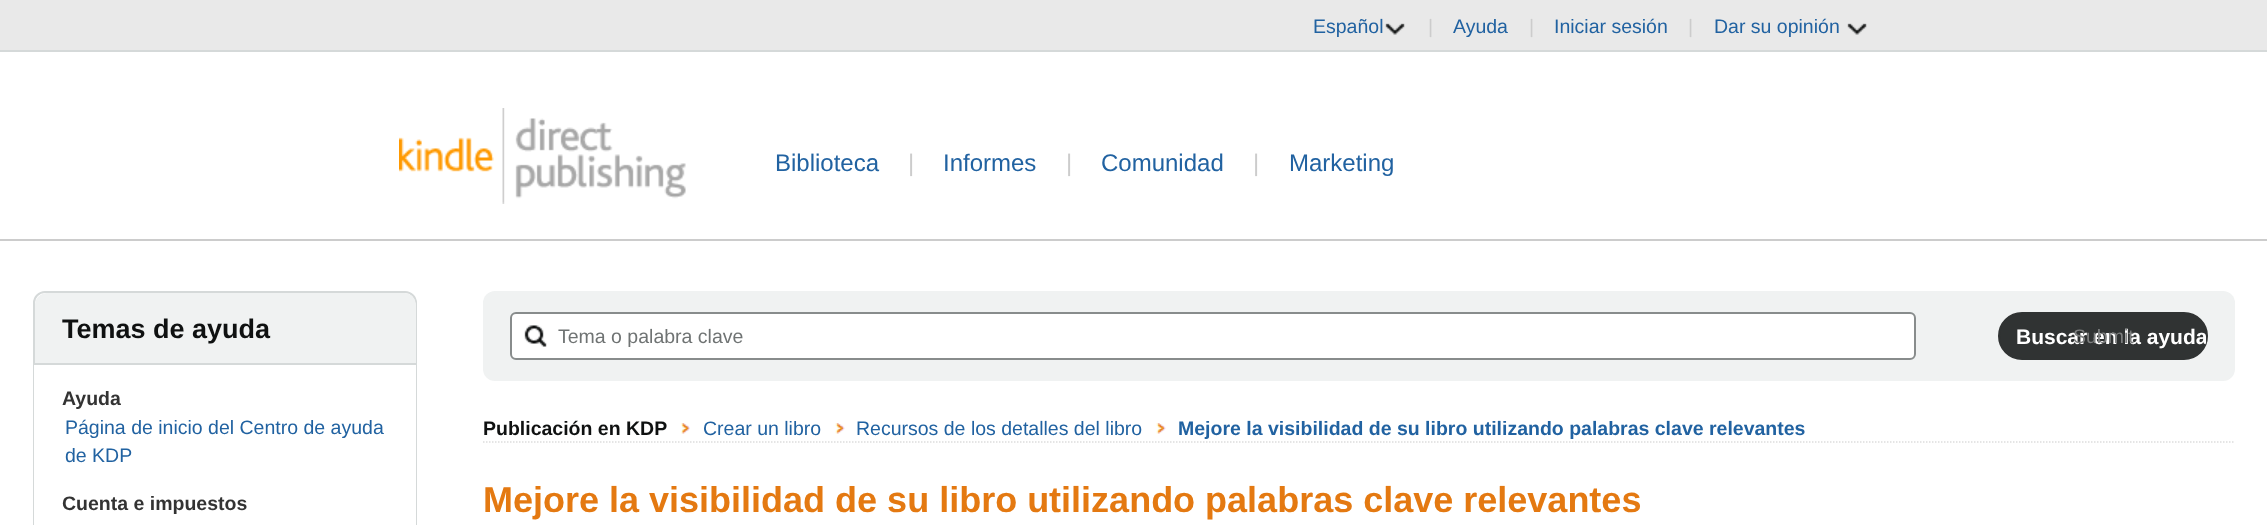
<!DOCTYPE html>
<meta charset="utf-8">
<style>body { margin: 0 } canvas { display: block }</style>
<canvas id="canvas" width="2267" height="525"></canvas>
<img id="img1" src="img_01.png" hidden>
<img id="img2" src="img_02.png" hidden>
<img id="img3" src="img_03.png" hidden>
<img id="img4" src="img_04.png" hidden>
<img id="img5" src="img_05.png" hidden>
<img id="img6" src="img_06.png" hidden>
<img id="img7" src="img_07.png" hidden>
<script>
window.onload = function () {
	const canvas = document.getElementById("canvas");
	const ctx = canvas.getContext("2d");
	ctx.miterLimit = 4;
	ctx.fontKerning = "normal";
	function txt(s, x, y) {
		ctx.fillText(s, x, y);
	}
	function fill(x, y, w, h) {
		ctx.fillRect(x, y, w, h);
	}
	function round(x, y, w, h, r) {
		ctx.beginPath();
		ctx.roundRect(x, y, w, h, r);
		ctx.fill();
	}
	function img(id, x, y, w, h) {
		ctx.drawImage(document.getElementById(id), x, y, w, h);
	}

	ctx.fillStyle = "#FFFFFF";
	fill(0, 0, 2267, 525);
	ctx.fillStyle = "#E9E9E9";
	fill(0, 0, 2267, 50);
	img("img1", 1385, 23, 20, 12);
	img("img2", 1847, 23, 20, 12);
	ctx.fillStyle = "#D5D9D9";
	fill(0, 50, 2267, 2);
	ctx.fillStyle = "#CCCCCC";
	fill(0, 239, 2267, 2);
	img("img3", 399, 108, 287, 96);
	ctx.fillStyle = "#D5D9D9";
	ctx.beginPath();
	ctx.moveTo(33, 363);
	ctx.lineTo(417, 363);
	ctx.lineTo(417, 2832);
	ctx.bezierCurveTo(417, 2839, 412, 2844, 405, 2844);
	ctx.lineTo(45, 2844);
	ctx.bezierCurveTo(38, 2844, 33, 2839, 33, 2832);
	ctx.closePath();
	ctx.moveTo(34, 363);
	ctx.lineTo(416, 363);
	ctx.lineTo(416, 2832);
	ctx.bezierCurveTo(416, 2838, 411, 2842, 405, 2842);
	ctx.lineTo(45, 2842);
	ctx.bezierCurveTo(39, 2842, 34, 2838, 34, 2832);
	ctx.closePath();
	ctx.fill("evenodd");
	ctx.fillStyle = "#FFFFFF";
	ctx.beginPath();
	ctx.roundRect(34, 292, 382, 72, [11, 11, 0, 0]);
	ctx.fill();
	ctx.strokeStyle = "#D5D9D9";
	ctx.lineWidth = 2;
	ctx.stroke();
	ctx.save();
	ctx.beginPath();
	ctx.roundRect(35, 293, 381, 70, [11, 11, 0, 0]);
	ctx.clip();
	ctx.fillStyle = "#F0F2F2";
	ctx.beginPath();
	ctx.roundRect(35, 293, 381, 70, [12, 12, 0, 0]);
	ctx.fill();
	ctx.restore();
	ctx.fillStyle = "#F0F2F2";
	round(483, 291, 1752, 90, 12);
	ctx.fillStyle = "#FFFFFF";
	ctx.beginPath();
	ctx.roundRect(511, 313, 1404, 46, 5);
	ctx.fill();
	ctx.strokeStyle = "#888C8C";
	ctx.stroke();
	img("img4", 524, 325, 23, 22);
	ctx.fillStyle = "#303333";
	ctx.beginPath();
	ctx.roundRect(1999, 313, 208, 46, 23);
	ctx.fill();
	ctx.strokeStyle = "#303333";
	ctx.stroke();
	ctx.beginPath();
	ctx.moveTo(483, 442);
	ctx.lineTo(2235, 442);
	ctx.strokeStyle = "#DDDDDD";
	ctx.lineWidth = 1.5;
	ctx.setLineDash([1.5, 1.5]);
	ctx.stroke();
	img("img5", 681, 423, 9, 11);
	img("img6", 835, 423, 10, 11);
	img("img7", 1156, 423, 10, 11);
	ctx.font = "19.5px Liberation Sans";
	ctx.fillStyle = "#2162A1";
	txt("Español", 1313, 33);
	ctx.fillStyle = "#CCCCCC";
	txt("|", 1428, 33);
	ctx.fillStyle = "#2162A1";
	txt("Ayuda", 1453, 33);
	ctx.fillStyle = "#CCCCCC";
	txt("|", 1529, 33);
	ctx.fillStyle = "#2162A1";
	txt("Iniciar sesión", 1554, 33);
	ctx.fillStyle = "#CCCCCC";
	txt("|", 1688, 33);
	ctx.fillStyle = "#2162A1";
	txt("Dar su opinión", 1714, 33);
	ctx.font = "24px Liberation Sans";
	txt("Biblioteca", 775, 171);
	ctx.fillStyle = "#CCCCCC";
	txt("|", 908, 171);
	ctx.fillStyle = "#2162A1";
	txt("Informes", 943, 171);
	ctx.fillStyle = "#CCCCCC";
	txt("|", 1066, 171);
	ctx.fillStyle = "#2162A1";
	txt("Comunidad", 1101, 171);
	ctx.fillStyle = "#CCCCCC";
	txt("|", 1253, 171);
	ctx.fillStyle = "#2162A1";
	txt("Marketing", 1289, 171);
	ctx.font = "bold 27px Liberation Sans";
	ctx.fillStyle = "#0F1111";
	txt("Temas de ayuda", 62, 338);
	ctx.font = "bold 19.5px Liberation Sans";
	ctx.fillStyle = "#333333";
	txt("Ayuda", 62, 405);
	ctx.font = "19.5px Liberation Sans";
	ctx.fillStyle = "#2162A1";
	txt("Página de inicio del Centro de ayuda", 65, 434);
	txt("de KDP", 65, 462);
	ctx.font = "bold 19.5px Liberation Sans";
	ctx.fillStyle = "#333333";
	txt("Cuenta e impuestos", 62, 510);
	ctx.font = "19.5px Liberation Sans";
	ctx.fillStyle = "#6F7373";
	txt("Tema o palabra clave", 558, 343);
	ctx.save();
	ctx.beginPath();
	ctx.roundRect(2000, 314, 207, 45, 22.5);
	ctx.clip();
	ctx.font = "bold 21px Liberation Sans";
	ctx.fillStyle = "#FFFFFF";
	txt("Buscar en la ayuda", 2016, 344);
	ctx.restore();
	ctx.fillStyle = "#7D7F7F";
	txt("Submit", 2073, 343);
	ctx.font = "bold 19.5px Liberation Sans";
	ctx.fillStyle = "#0F1111";
	txt("Publicación en KDP", 483, 435);
	ctx.font = "19.5px Liberation Sans";
	ctx.fillStyle = "#2162A1";
	txt("Crear un libro", 703, 435);
	txt("Recursos de los detalles del libro", 856, 435);
	ctx.font = "bold 19.5px Liberation Sans";
	txt("Mejore la visibilidad de su libro utilizando palabras clave relevantes", 1178, 435);
	ctx.font = "bold 36px Liberation Sans";
	ctx.fillStyle = "#E47911";
	txt("Mejore la visibilidad de su libro utilizando palabras clave relevantes", 483, 512);
};
</script>
